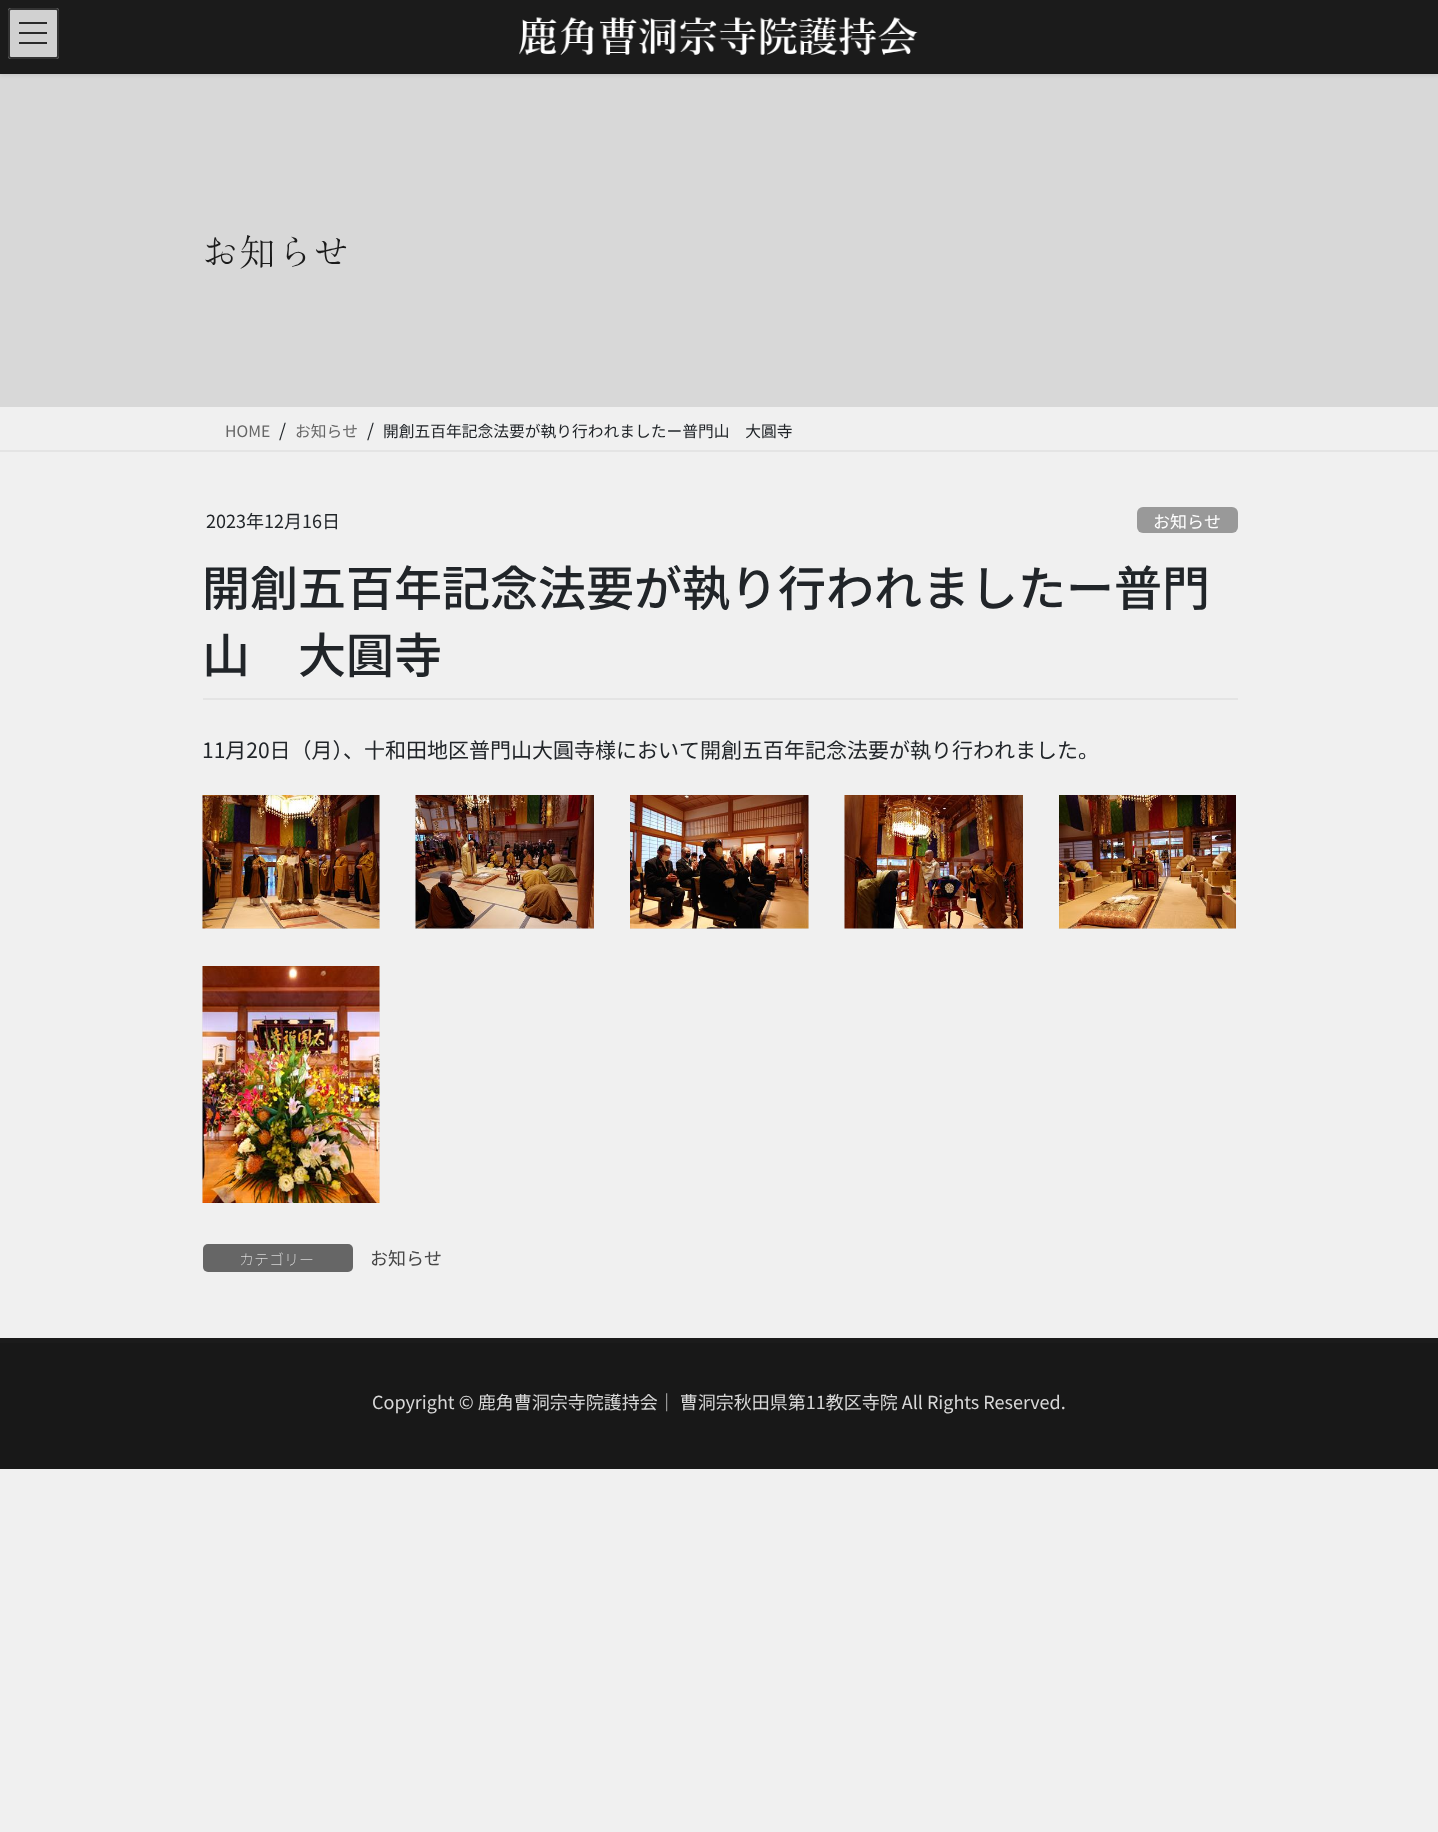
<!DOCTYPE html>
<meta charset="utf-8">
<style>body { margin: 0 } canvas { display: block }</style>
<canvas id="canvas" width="1438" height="1832"></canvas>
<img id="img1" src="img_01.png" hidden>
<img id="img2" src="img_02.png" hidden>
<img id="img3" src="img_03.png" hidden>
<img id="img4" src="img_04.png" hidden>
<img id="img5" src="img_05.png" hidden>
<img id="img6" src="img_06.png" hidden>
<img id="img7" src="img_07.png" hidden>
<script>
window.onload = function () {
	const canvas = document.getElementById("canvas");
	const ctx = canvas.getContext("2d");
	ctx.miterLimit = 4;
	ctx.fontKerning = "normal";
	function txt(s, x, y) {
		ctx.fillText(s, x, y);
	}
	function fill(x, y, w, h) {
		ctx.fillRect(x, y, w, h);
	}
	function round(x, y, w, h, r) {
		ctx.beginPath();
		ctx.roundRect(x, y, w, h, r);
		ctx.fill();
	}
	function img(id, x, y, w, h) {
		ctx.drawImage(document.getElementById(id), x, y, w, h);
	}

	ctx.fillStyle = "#F0F0F0";
	fill(0, 0, 1438, 1832);
	ctx.fillStyle = "#D8D8D8";
	fill(0, 74, 1438, 333);
	ctx.fillStyle = "rgba(0, 0, 0, 0.1)";
	ctx.filter = "blur(2px)";
	ctx.beginPath();
	ctx.rect(0, 2, 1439, 73);
	ctx.fill();
	ctx.filter = "none";
	ctx.fillStyle = "#1B1B1B";
	fill(0, 0, 1438, 74);
	img("img1", 519, 17, 399, 38);
	ctx.fillStyle = "#D1D1D1";
	round(8, 8, 51, 51, 3);
	ctx.fillStyle = "#2A2A2A";
	fill(19, 22, 28, 2);
	fill(19, 32, 28, 2);
	fill(19, 42, 28, 2);
	ctx.beginPath();
	ctx.roundRect(9, 9, 49, 49, 2);
	ctx.strokeStyle = "#333333";
	ctx.lineWidth = 2;
	ctx.stroke();
	ctx.fillStyle = "#E4E4E4";
	fill(0, 450, 1438, 2);
	fill(203, 698, 1035, 2);
	ctx.fillStyle = "#999999";
	round(1137, 507, 101, 26, 6);
	img("img2", 202, 795, 178, 134);
	img("img3", 415, 795, 179, 134);
	img("img4", 630, 795, 179, 134);
	img("img5", 844, 795, 179, 134);
	img("img6", 1059, 795, 177, 134);
	img("img7", 202, 966, 178, 237);
	ctx.fillStyle = "#666666";
	round(203, 1244, 150, 28, 5);
	ctx.fillStyle = "#181818";
	fill(0, 1343, 1438, 126);
	ctx.fillStyle = "#1B1B1B";
	fill(0, 1338, 1438, 5);
	ctx.font = "37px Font";
	txt("お知らせ", 202, 266);
	ctx.font = "15.75px Noto Sans JP";
	ctx.fillStyle = "#666666";
	txt("HOME", 225, 437);
	ctx.font = "18px Noto Sans JP";
	ctx.fillStyle = "#212529";
	txt("/", 279, 437);
	ctx.font = "15.75px Noto Sans JP";
	ctx.fillStyle = "#666666";
	txt("お知らせ", 295, 437);
	ctx.font = "18px Noto Sans JP";
	ctx.fillStyle = "#212529";
	txt("/", 367, 437);
	ctx.font = "15.75px Noto Sans JP";
	txt("開創五百年記念法要が執り行われましたー普門山　大圓寺", 383, 437);
	ctx.font = "18px Noto Sans JP";
	txt("2023年12月16日", 206, 528);
	ctx.font = "17px Noto Sans JP";
	ctx.fillStyle = "#FFFFFF";
	txt("お知らせ", 1153, 528);
	ctx.font = "500 48px Noto Sans JP";
	ctx.fillStyle = "#212529";
	txt("開創五百年記念法要が執り行われましたー普門", 202, 606);
	txt("山　大圓寺", 202, 673);
	ctx.font = "21px Noto Sans JP";
	txt("11月20日（月）、十和田地区普門山大圓寺様において開創五百年記念法要が執り行われました。", 202, 758);
	ctx.font = "100 15px Noto Sans JP";
	ctx.fillStyle = "#FFFFFF";
	txt("カテゴリー", 239, 1265);
	ctx.font = "18px Noto Sans JP";
	ctx.fillStyle = "#464646";
	txt("お知らせ", 370, 1265);
	ctx.fillStyle = "#D8D8D8";
	txt("Copyright © 鹿角曹洞宗寺院護持会｜ 曹洞宗秋田県第11教区寺院 All Rights Reserved.", 372, 1409);
};
</script>
